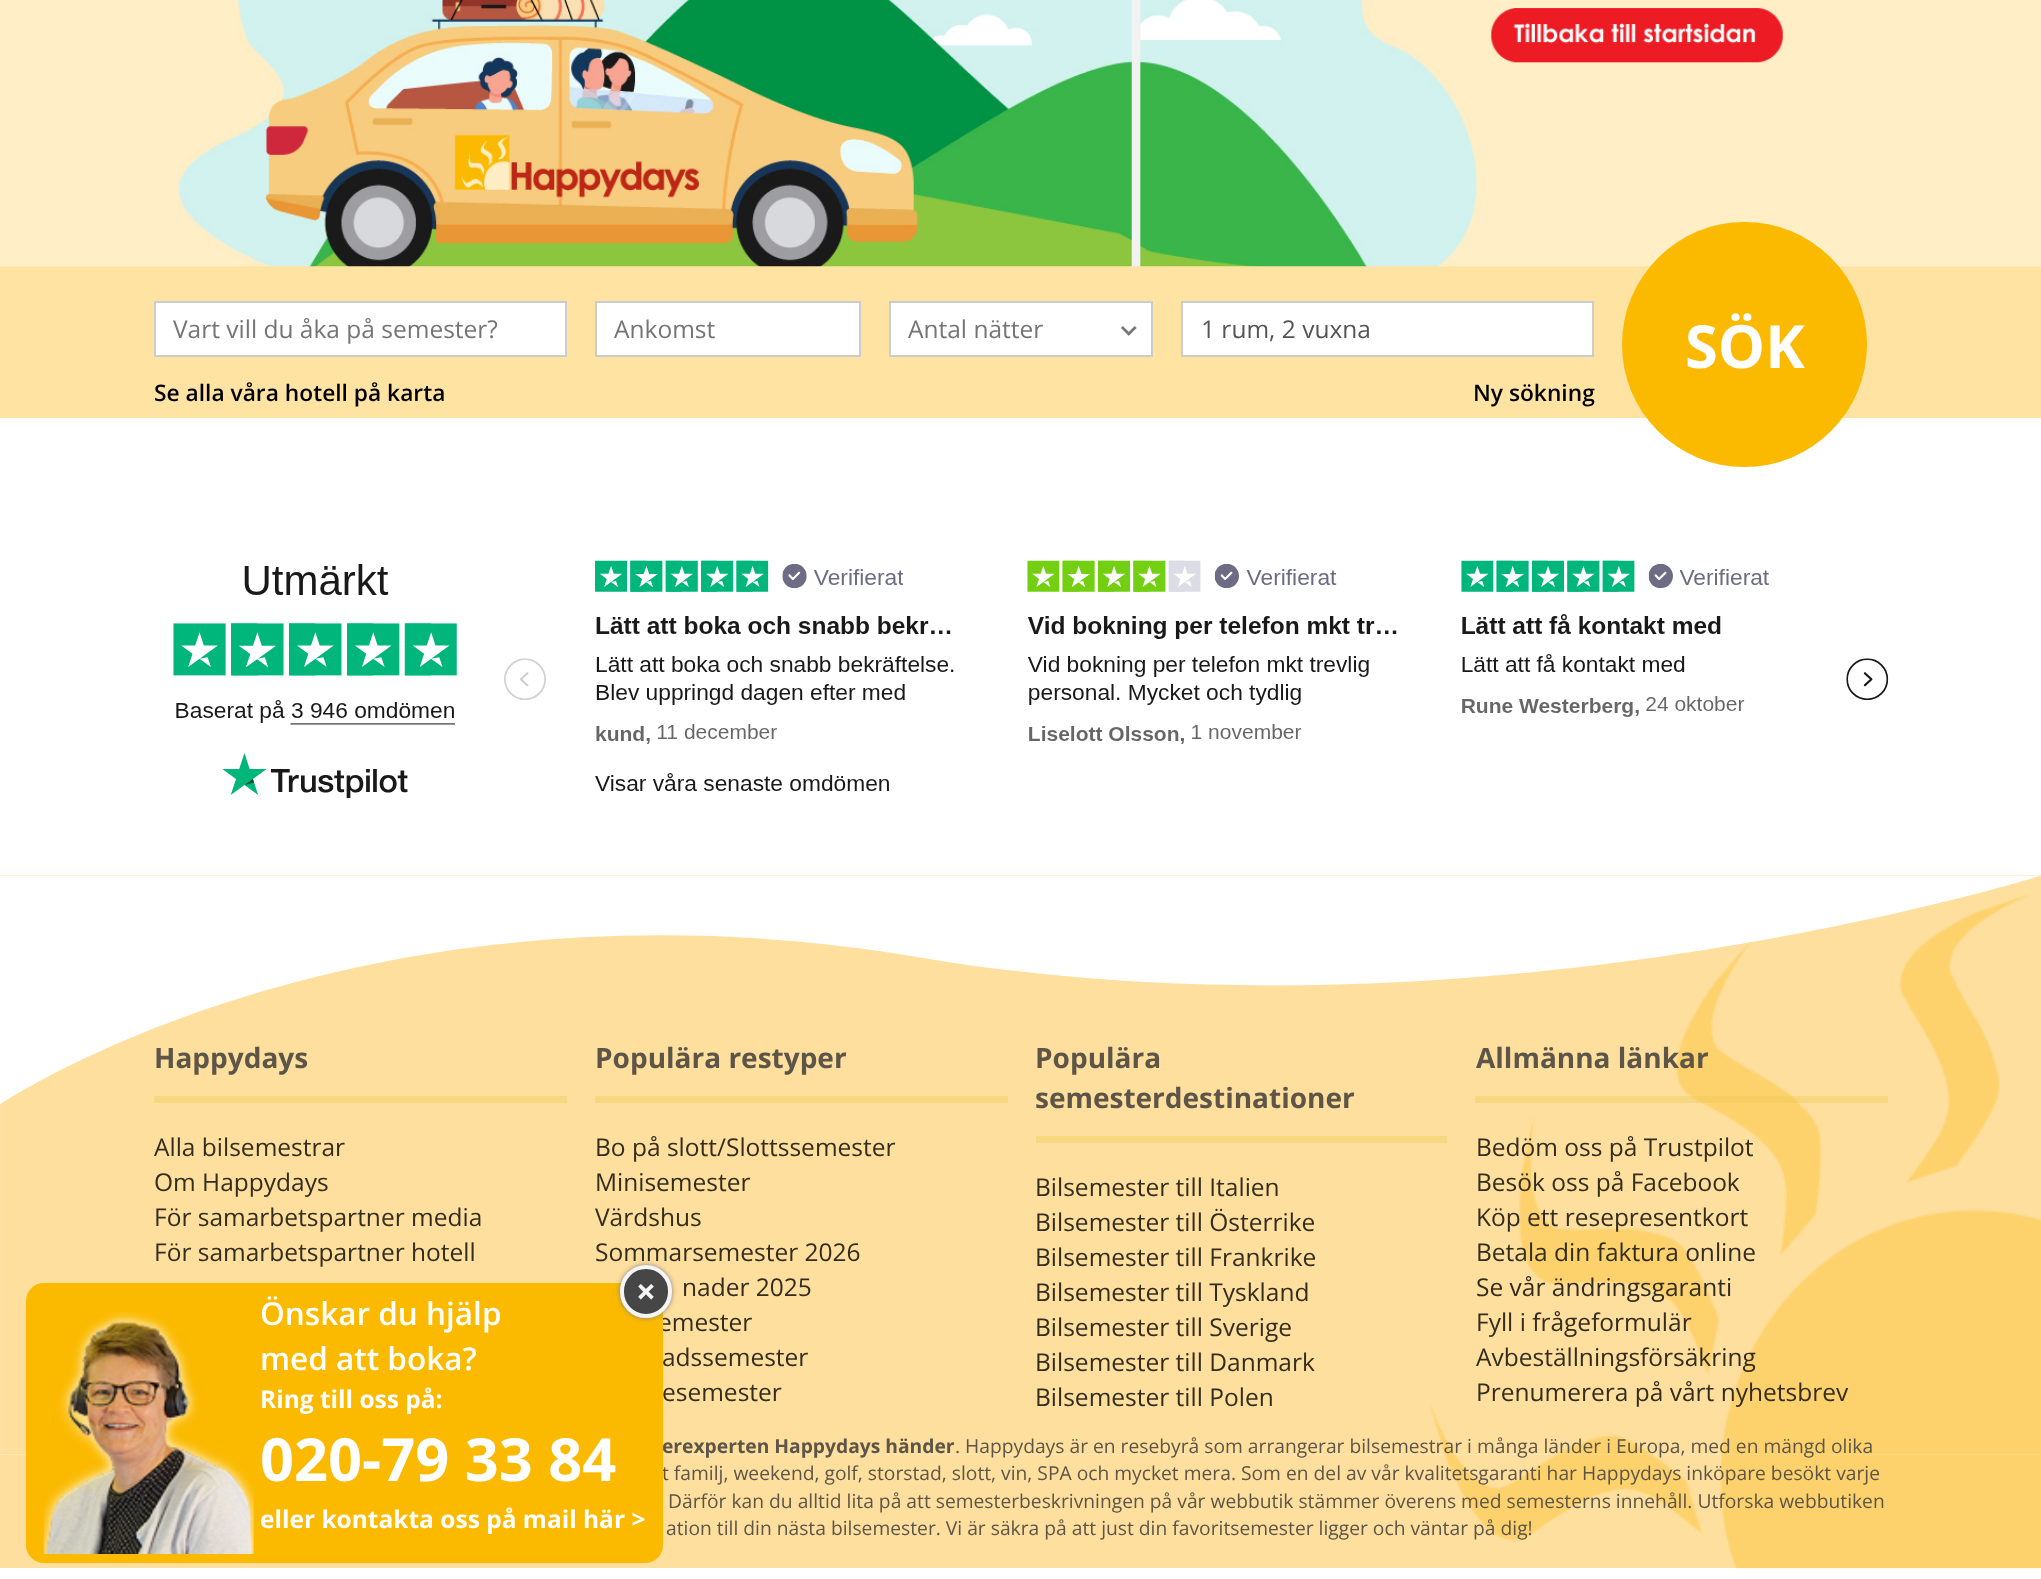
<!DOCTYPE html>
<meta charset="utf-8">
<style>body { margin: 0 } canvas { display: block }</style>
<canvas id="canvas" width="2041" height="1579"></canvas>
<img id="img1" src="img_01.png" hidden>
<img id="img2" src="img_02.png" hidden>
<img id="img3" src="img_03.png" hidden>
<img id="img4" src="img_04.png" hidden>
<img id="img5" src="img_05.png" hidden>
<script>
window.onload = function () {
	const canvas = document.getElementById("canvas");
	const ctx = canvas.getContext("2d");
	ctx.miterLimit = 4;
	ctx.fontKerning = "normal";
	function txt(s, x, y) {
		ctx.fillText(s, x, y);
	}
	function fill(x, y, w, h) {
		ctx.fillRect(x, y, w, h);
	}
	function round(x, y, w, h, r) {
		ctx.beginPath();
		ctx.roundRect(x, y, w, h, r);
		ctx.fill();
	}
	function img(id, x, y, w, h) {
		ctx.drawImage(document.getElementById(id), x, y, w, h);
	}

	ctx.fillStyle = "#FFFFFF";
	fill(0, 0, 2041, 1579);
	ctx.fillStyle = "#FFE3A2";
	fill(0, 266, 2041, 152);
	img("img1", 0, 0, 2041, 267);
	ctx.fillStyle = "#FFFFFF";
	ctx.beginPath();
	ctx.rect(155, 302, 411, 54);
	ctx.fill();
	ctx.strokeStyle = "#CCCCCC";
	ctx.lineWidth = 2;
	ctx.stroke();
	ctx.beginPath();
	ctx.rect(596, 302, 264, 54);
	ctx.fill();
	ctx.stroke();
	ctx.beginPath();
	ctx.rect(890, 302, 262, 54);
	ctx.fill();
	ctx.stroke();
	img("img2", 1121, 326, 16, 10);
	ctx.beginPath();
	ctx.rect(1182, 302, 411, 54);
	ctx.fill();
	ctx.stroke();
	ctx.fillStyle = "#FBBA00";
	ctx.beginPath();
	ctx.arc(1744.5, 344.5, 122.5, 0, Math.PI * 2);
	ctx.fill();
	img("img3", 173, 560, 1716, 239);
	ctx.fillStyle = "#FFDF9D";
	fill(0, 875, 2041, 693);
	img("img4", 0, 875, 2041, 694);
	ctx.fillStyle = "#F7D77F";
	fill(154, 1096, 413, 7);
	fill(595, 1096, 413, 7);
	fill(1036, 1136, 411, 7);
	ctx.fillStyle = "rgba(236, 203, 83, 0.4)";
	fill(1475, 1096, 413, 7);
	ctx.font = "24.5px Open Sans";
	ctx.fillStyle = "#757575";
	txt("Vart vill du åka på semester?", 173, 338);
	txt("Ankomst", 614, 338);
	txt("Antal nätter", 908, 338);
	ctx.fillStyle = "#555555";
	txt("1 rum, 2 vuxna", 1201, 338);
	ctx.font = "bold 59.5px Open Sans";
	ctx.fillStyle = "#FFFFFF";
	txt("SÖK", 1685, 368);
	ctx.font = "600 22.75px Open Sans";
	ctx.fillStyle = "#000000";
	txt("Se alla våra hotell på karta", 154, 401);
	txt("Ny sökning", 1473, 401);
	ctx.font = "bold 28px Open Sans";
	ctx.fillStyle = "#5C5548";
	txt("Happydays", 154, 1068);
	ctx.font = "24.5px Open Sans";
	ctx.fillStyle = "#332D1F";
	txt("Alla bilsemestrar", 154, 1156);
	txt("Om Happydays", 154, 1191);
	txt("För samarbetspartner media", 154, 1226);
	txt("För samarbetspartner hotell", 154, 1261);
	ctx.font = "bold 28px Open Sans";
	ctx.fillStyle = "#5C5548";
	txt("Populära restyper", 595, 1068);
	ctx.font = "24.5px Open Sans";
	ctx.fillStyle = "#332D1F";
	txt("Bo på slott/Slottssemester", 595, 1156);
	txt("Minisemester", 595, 1191);
	txt("Värdshus", 595, 1226);
	txt("Sommarsemester 2026", 595, 1261);
	txt("nader 2025", 682, 1296);
	txt("emester", 658, 1331);
	txt("adssemester", 662, 1366);
	txt("esemester", 662, 1401);
	ctx.font = "bold 28px Open Sans";
	ctx.fillStyle = "#5C5548";
	txt("Populära", 1035, 1068);
	txt("semesterdestinationer", 1035, 1108);
	ctx.font = "24.5px Open Sans";
	ctx.fillStyle = "#332D1F";
	txt("Bilsemester till Italien", 1035, 1196);
	txt("Bilsemester till Österrike", 1035, 1231);
	txt("Bilsemester till Frankrike", 1035, 1266);
	txt("Bilsemester till Tyskland", 1035, 1301);
	txt("Bilsemester till Sverige", 1035, 1336);
	txt("Bilsemester till Danmark", 1035, 1371);
	txt("Bilsemester till Polen", 1035, 1406);
	ctx.font = "bold 28px Open Sans";
	ctx.fillStyle = "#5C5548";
	txt("Allmänna länkar", 1476, 1068);
	ctx.font = "24.5px Open Sans";
	ctx.fillStyle = "#332D1F";
	txt("Bedöm oss på Trustpilot", 1476, 1156);
	txt("Besök oss på Facebook", 1476, 1191);
	txt("Köp ett resepresentkort", 1476, 1226);
	txt("Betala din faktura online", 1476, 1261);
	txt("Se vår ändringsgaranti", 1476, 1296);
	txt("Fyll i frågeformulär", 1476, 1331);
	txt("Avbeställningsförsäkring", 1476, 1366);
	txt("Prenumerera på vårt nyhetsbrev", 1476, 1401);
	ctx.font = "bold 19.25px Open Sans";
	ctx.fillStyle = "#5C5548";
	txt("erexperten Happydays händer", 662, 1453);
	ctx.font = "19.25px Open Sans";
	txt(". Happydays är en resebyrå som arrangerar bilsemestrar i många länder i Europa, med en mängd olika", 955, 1453);
	txt("t familj, weekend, golf, storstad, slott, vin, SPA och mycket mera. Som en del av vår kvalitetsgaranti har Happydays inköpare besökt varje", 662, 1480);
	txt("Därför kan du alltid lita på att semesterbeskrivningen på vår webbutik stämmer överens med semesterns innehåll. Utforska webbutiken", 668, 1508);
	txt("ation till din nästa bilsemester. Vi är säkra på att just din favoritsemester ligger och väntar på dig!", 666, 1535);
	ctx.fillStyle = "#FBBA00";
	round(26, 1283, 637, 280, 18);
	ctx.fillStyle = "#808080";
	ctx.filter = "blur(2.5px)";
	ctx.beginPath();
	ctx.roundRect(620, 1265, 52, 53, 26);
	ctx.fill();
	ctx.filter = "none";
	ctx.fillStyle = "#464646";
	ctx.beginPath();
	ctx.roundRect(622, 1267, 48, 49, 24);
	ctx.fill();
	ctx.strokeStyle = "#F5F5F5";
	ctx.lineWidth = 4;
	ctx.stroke();
	ctx.font = "bold 35px Open Sans";
	ctx.fillStyle = "#F5F5F5";
	txt("×", 636, 1304);
	img("img5", 43, 1312, 211, 242);
	ctx.font = "600 31.5px Open Sans";
	ctx.fillStyle = "#FFFFFF";
	txt("Önskar du hjälp", 260, 1325);
	txt("med att boka?", 260, 1370);
	ctx.font = "bold 24.5px Open Sans";
	txt("Ring till oss på:", 260, 1408);
	ctx.font = "bold 59.5px Open Sans";
	txt("020-79 33 84", 260, 1481);
	ctx.font = "bold 24.5px Open Sans";
	txt("eller kontakta oss på mail här >", 260, 1528);
};
</script>
